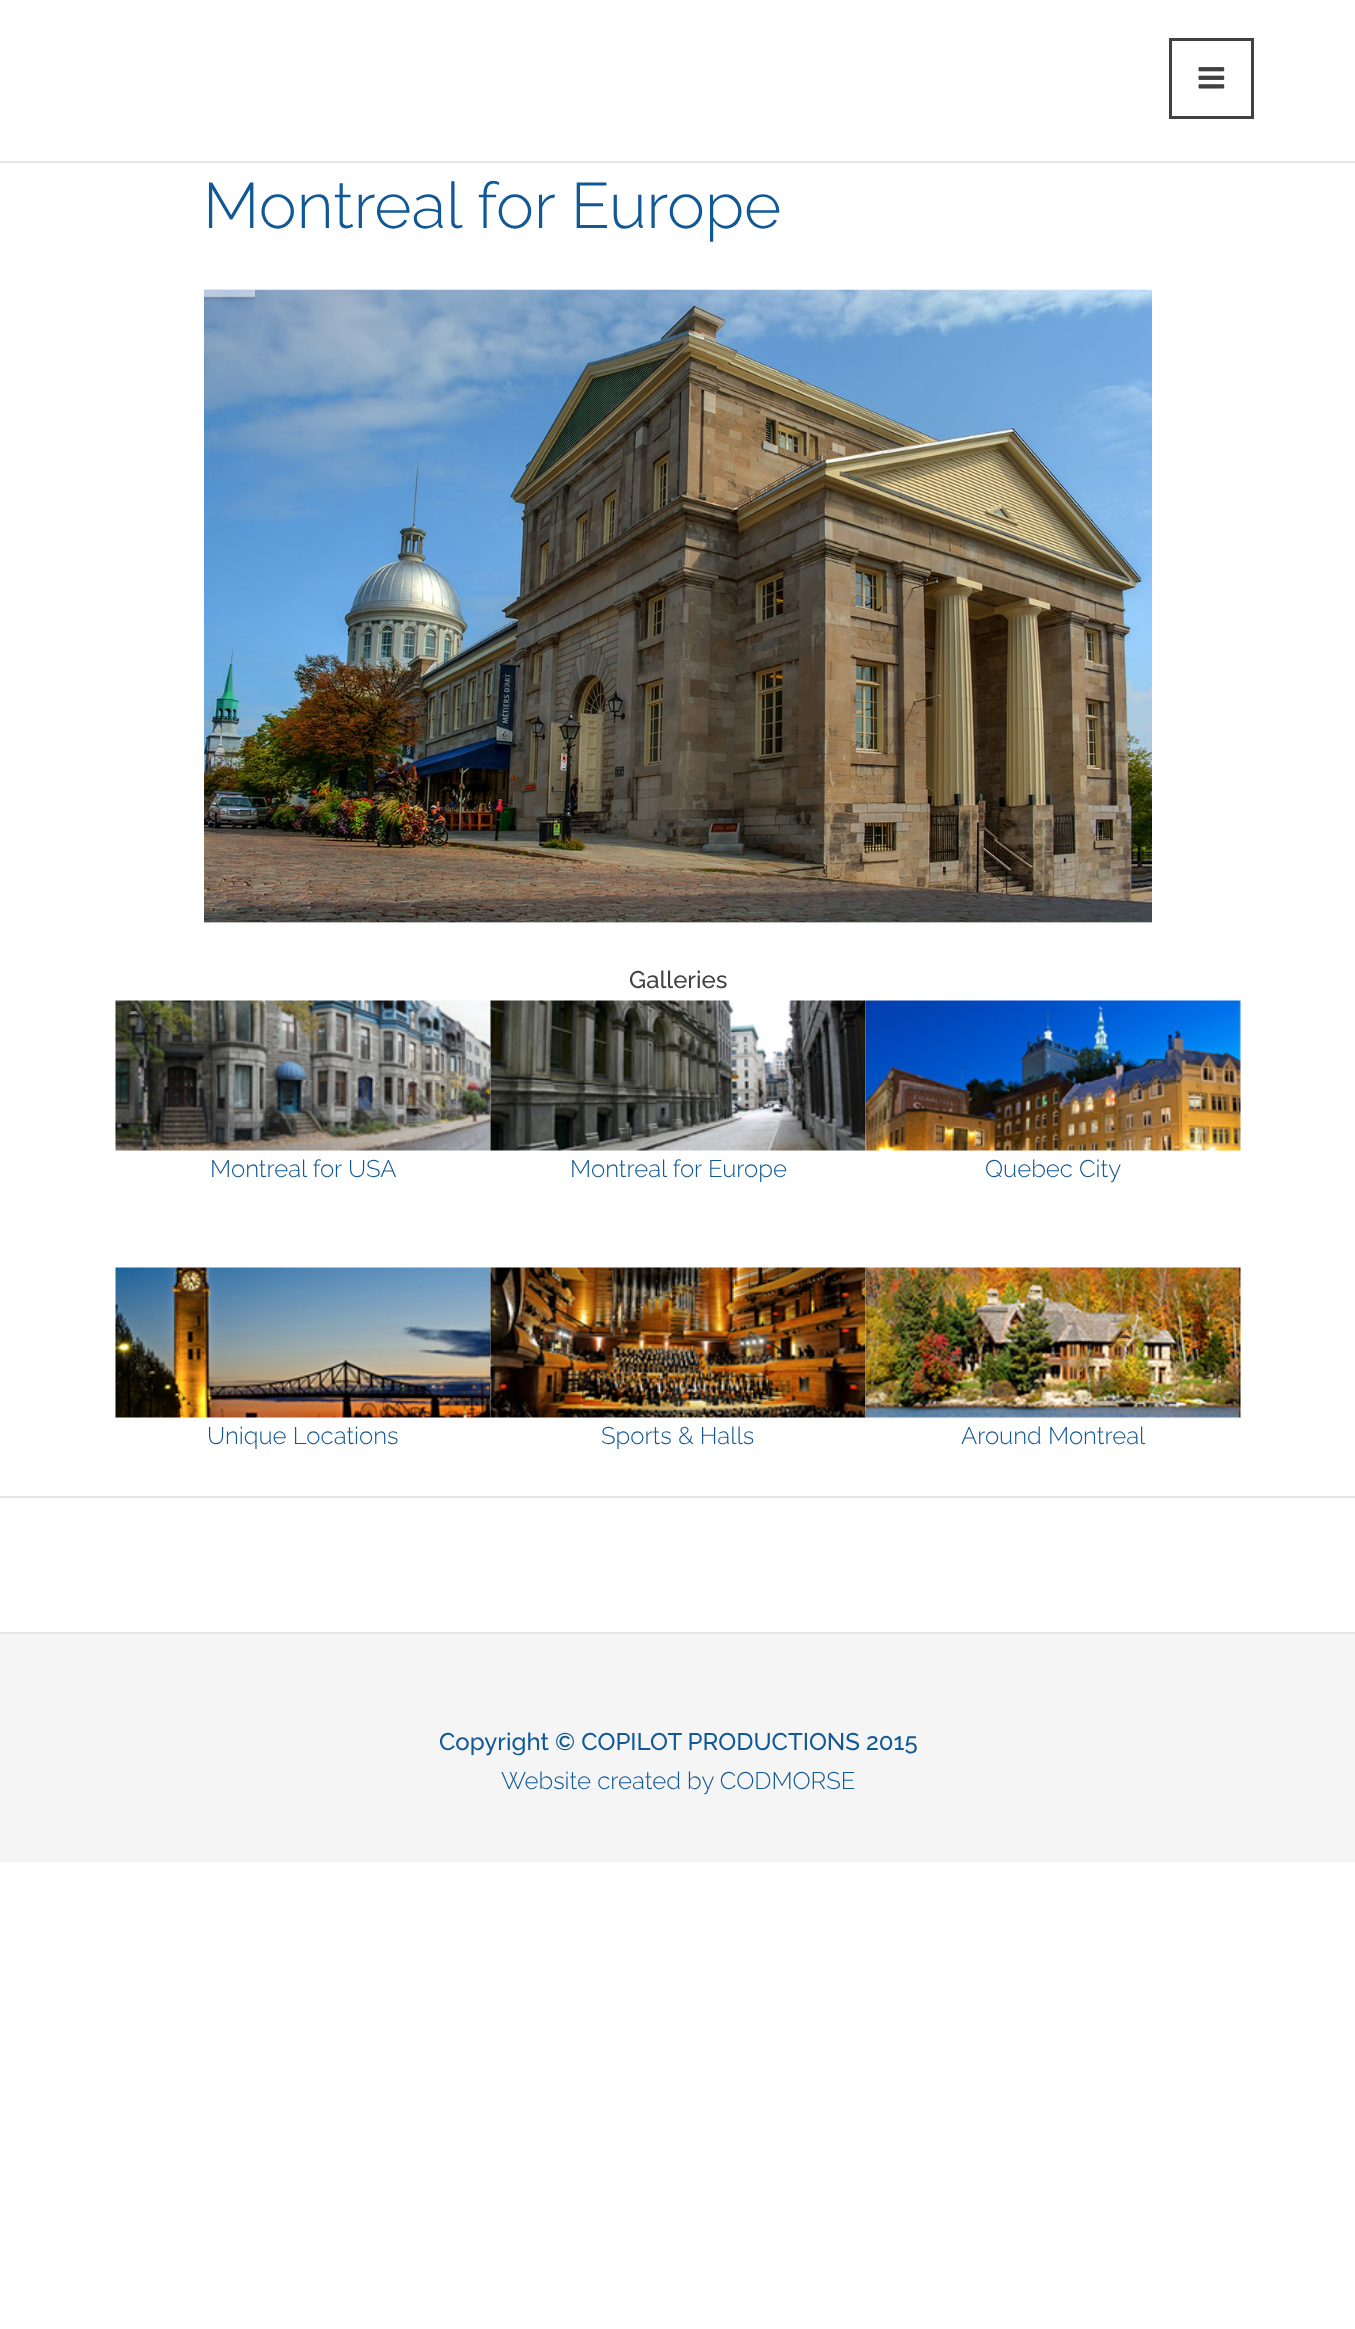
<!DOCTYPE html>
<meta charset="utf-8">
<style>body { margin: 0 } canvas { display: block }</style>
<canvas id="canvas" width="1355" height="2329"></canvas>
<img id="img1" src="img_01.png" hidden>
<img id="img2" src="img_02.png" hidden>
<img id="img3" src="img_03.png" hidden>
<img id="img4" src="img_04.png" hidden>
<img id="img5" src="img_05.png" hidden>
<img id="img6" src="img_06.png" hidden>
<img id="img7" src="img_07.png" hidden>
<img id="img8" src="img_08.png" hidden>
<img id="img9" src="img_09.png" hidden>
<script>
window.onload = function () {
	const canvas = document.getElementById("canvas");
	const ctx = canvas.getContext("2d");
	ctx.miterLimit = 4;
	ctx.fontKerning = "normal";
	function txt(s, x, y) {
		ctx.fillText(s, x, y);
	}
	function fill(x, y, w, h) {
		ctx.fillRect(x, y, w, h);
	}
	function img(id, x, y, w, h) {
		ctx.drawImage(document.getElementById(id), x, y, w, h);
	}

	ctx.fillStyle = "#FFFFFF";
	fill(0, 0, 1355, 2329);
	ctx.fillStyle = "#E5E5E5";
	fill(0, 161, 1355, 2);
	ctx.strokeStyle = "#414141";
	ctx.lineWidth = 3;
	ctx.strokeRect(1170.5, 39.5, 82, 78);
	img("img1", 1198, 67, 27, 22);
	ctx.fillStyle = "#E9E9E9";
	fill(204, 922, 948, 1);
	img("img2", 204, 289, 948, 634);
	img("img3", 204, 289, 51, 12);
	img("img4", 115, 1000, 376, 151);
	img("img5", 490, 1000, 376, 151);
	img("img6", 865, 1000, 376, 151);
	img("img7", 115, 1267, 376, 151);
	img("img8", 490, 1267, 376, 151);
	img("img9", 865, 1267, 376, 151);
	ctx.fillStyle = "#E5E5E5";
	fill(0, 1496, 1355, 2);
	fill(0, 1632, 1355, 2);
	ctx.fillStyle = "#F5F5F5";
	fill(0, 1634, 1355, 228);
	ctx.font = "300 64px Raleway";
	ctx.fillStyle = "#115896";
	txt("Montreal for Europe", 203, 228);
	ctx.font = "500 24px Raleway";
	ctx.fillStyle = "#414141";
	txt("Galleries", 629, 988);
	ctx.font = "300 24px Raleway";
	ctx.fillStyle = "#115896";
	txt("Montreal for USA", 210, 1177);
	txt("Montreal for Europe", 570, 1177);
	txt("Quebec City", 985, 1177);
	txt("Unique Locations", 207, 1444);
	txt("Sports & Halls", 601, 1444);
	txt("Around Montreal", 961, 1444);
	ctx.font = "500 24px Raleway";
	txt("Copyright © COPILOT PRODUCTIONS 2015", 439, 1750);
	ctx.font = "300 24px Raleway";
	txt("Website created by CODMORSE", 501, 1789);
};
</script>
